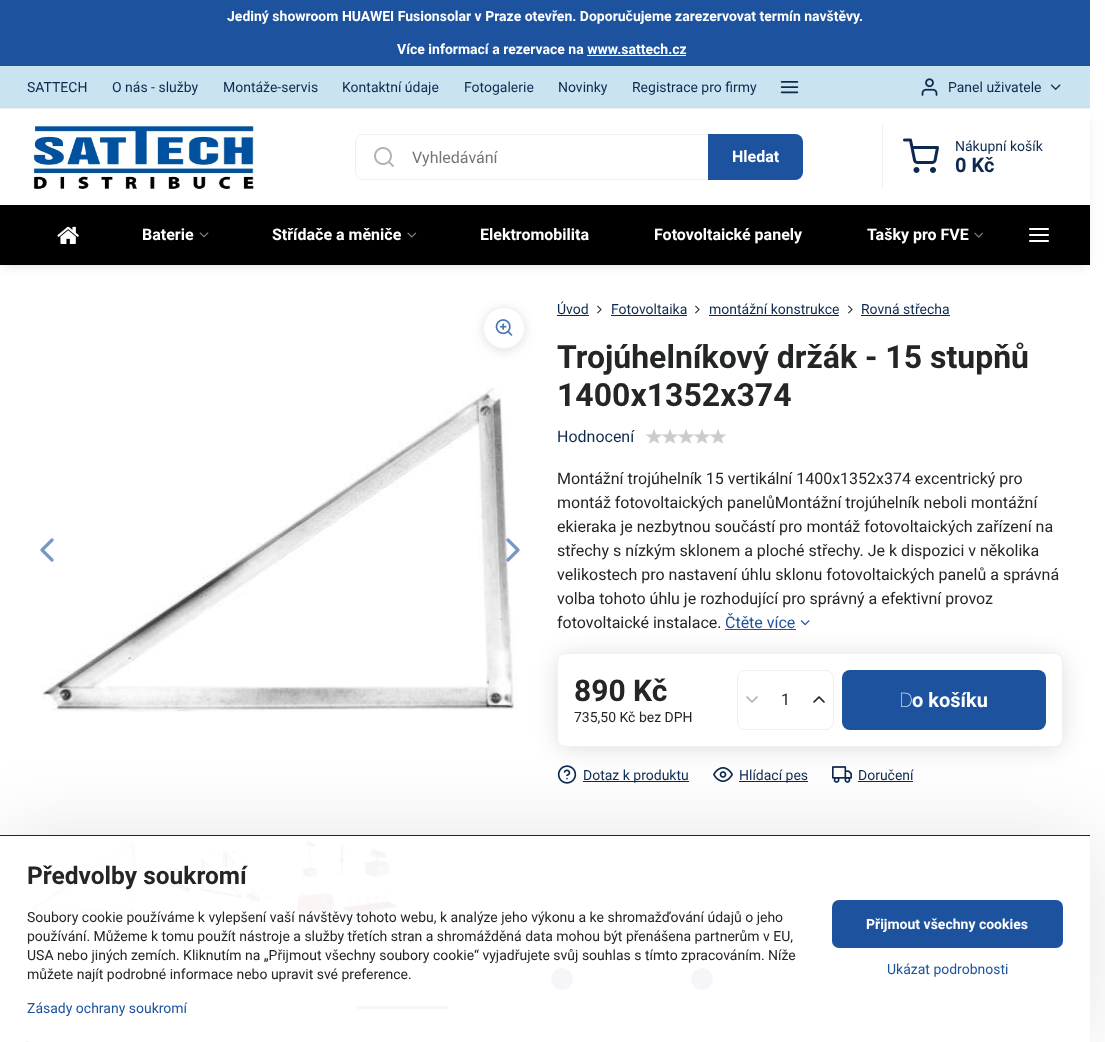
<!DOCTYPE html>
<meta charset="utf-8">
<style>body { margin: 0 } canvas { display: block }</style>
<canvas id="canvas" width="1105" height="1042"></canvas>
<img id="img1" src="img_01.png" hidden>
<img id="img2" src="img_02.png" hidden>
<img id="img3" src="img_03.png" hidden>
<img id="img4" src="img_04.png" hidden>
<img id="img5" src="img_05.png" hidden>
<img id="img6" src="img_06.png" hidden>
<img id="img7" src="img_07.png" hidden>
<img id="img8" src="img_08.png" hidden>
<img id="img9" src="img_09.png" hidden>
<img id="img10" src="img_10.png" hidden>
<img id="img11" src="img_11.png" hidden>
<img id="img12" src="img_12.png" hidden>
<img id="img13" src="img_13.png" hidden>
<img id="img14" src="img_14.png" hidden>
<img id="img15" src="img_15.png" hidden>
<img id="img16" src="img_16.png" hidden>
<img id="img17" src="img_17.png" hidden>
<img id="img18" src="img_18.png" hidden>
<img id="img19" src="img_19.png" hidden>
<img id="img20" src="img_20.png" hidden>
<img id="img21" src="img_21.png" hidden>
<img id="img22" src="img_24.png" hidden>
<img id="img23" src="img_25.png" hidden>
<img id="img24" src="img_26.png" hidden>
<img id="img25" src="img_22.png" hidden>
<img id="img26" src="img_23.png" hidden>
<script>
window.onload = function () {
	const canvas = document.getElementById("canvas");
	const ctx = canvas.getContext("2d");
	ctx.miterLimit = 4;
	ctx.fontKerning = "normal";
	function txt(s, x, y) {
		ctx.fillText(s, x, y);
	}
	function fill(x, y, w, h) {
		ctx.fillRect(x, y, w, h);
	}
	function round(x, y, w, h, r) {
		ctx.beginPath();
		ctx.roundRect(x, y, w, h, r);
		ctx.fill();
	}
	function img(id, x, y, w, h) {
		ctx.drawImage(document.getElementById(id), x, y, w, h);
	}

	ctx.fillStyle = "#FFFFFF";
	fill(0, 0, 1105, 1042);
	ctx.fillStyle = "#1C529E";
	fill(0, 0, 1090, 66);
	ctx.fillStyle = "#FFFFFF";
	fill(587, 55, 99, 1);
	ctx.fillStyle = "#C9E4F0";
	fill(0, 66, 1090, 42);
	ctx.fillStyle = "#F0F0F0";
	fill(0, 108, 1090, 1);
	img("img1", 780, 81, 19, 13);
	img("img2", 921, 78, 17, 18);
	img("img3", 1050, 84, 11, 6);
	ctx.save();
	ctx.beginPath();
	ctx.moveTo(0, 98);
	ctx.lineTo(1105, 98);
	ctx.lineTo(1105, 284);
	ctx.lineTo(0, 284);
	ctx.closePath();
	ctx.moveTo(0, 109);
	ctx.lineTo(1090, 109);
	ctx.lineTo(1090, 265);
	ctx.lineTo(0, 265);
	ctx.closePath();
	ctx.clip("evenodd");
	ctx.fillStyle = "rgba(0, 0, 20, 0.15)";
	ctx.filter = "blur(6px)";
	ctx.beginPath();
	ctx.rect(4, 117, 1082, 148);
	ctx.fill();
	ctx.filter = "none";
	ctx.restore();
	img("img4", 32, 126, 224, 63);
	ctx.beginPath();
	ctx.roundRect(355.5, 134.5, 447, 45, 7.5);
	ctx.strokeStyle = "#F0F0F0";
	ctx.stroke();
	img("img5", 374, 147, 20, 20);
	ctx.fillStyle = "#1C529E";
	ctx.beginPath();
	ctx.roundRect(708, 134, 95, 46, [0, 8, 8, 0]);
	ctx.fill();
	ctx.fillStyle = "#F0F0F0";
	fill(882, 125, 1, 64);
	img("img6", 903, 138, 36, 35);
	ctx.fillStyle = "#000000";
	fill(0, 205, 1090, 60);
	img("img7", 57, 226, 22, 18);
	img("img8", 199, 232, 10, 6);
	img("img9", 407, 232, 10, 6);
	img("img10", 974, 232, 10, 6);
	img("img11", 1029, 228, 20, 14);
	ctx.fillStyle = "rgba(51, 51, 67, 0.15)";
	ctx.filter = "blur(6px)";
	ctx.beginPath();
	ctx.roundRect(483, 309, 42, 42, 21);
	ctx.fill();
	ctx.filter = "none";
	ctx.fillStyle = "#FFFFFF";
	ctx.beginPath();
	ctx.arc(504, 328, 20.5, 0, Math.PI * 2);
	ctx.fill();
	ctx.strokeStyle = "#F3F3F3";
	ctx.stroke();
	img("img12", 495, 319, 18, 17);
	img("img13", 42, 386, 475, 326);
	img("img14", 40, 538, 14, 24);
	img("img15", 506, 538, 14, 24);
	img("img16", 27, 839, 111, 76);
	img("img17", 161, 848, 108, 61);
	img("img18", 296, 839, 102, 76);
	ctx.fillStyle = "#0E294F";
	fill(557, 315, 32, 1);
	img("img19", 597, 305, 5, 9);
	fill(611, 315, 76, 1);
	img("img19", 695, 305, 5, 9);
	fill(709, 315, 130, 1);
	img("img19", 848, 305, 5, 9);
	fill(861, 315, 89, 1);
	img("img20", 646, 429, 80, 15);
	ctx.fillStyle = "#1C529E";
	fill(725, 629, 71, 1);
	img("img21", 800, 620, 10, 6);
	img("img22", 557, 765, 20, 19);
	ctx.fillStyle = "#0E294F";
	fill(583, 781, 106, 1);
	img("img23", 713, 767, 20, 15);
	fill(739, 781, 69, 1);
	img("img24", 832, 766, 20, 17);
	fill(858, 781, 55, 1);
	ctx.fillStyle = "rgba(0, 0, 20, 0.15)";
	ctx.filter = "blur(12px)";
	ctx.beginPath();
	ctx.roundRect(559, 657, 502, 90, 6);
	ctx.fill();
	ctx.filter = "none";
	ctx.fillStyle = "#FFFFFF";
	ctx.beginPath();
	ctx.roundRect(557.5, 653.5, 505, 93, 7.5);
	ctx.fill();
	ctx.strokeStyle = "#F0F0F0";
	ctx.stroke();
	ctx.beginPath();
	ctx.roundRect(737.5, 670.5, 96, 59, 7.5);
	ctx.stroke();
	img("img25", 746, 696, 12, 7);
	img("img26", 813, 696, 12, 7);
	ctx.fillStyle = "#1C529E";
	round(842, 670, 204, 60, 8);
	ctx.fillStyle = "#F4F6FA";
	ctx.beginPath();
	ctx.arc(562, 979, 11, 0, Math.PI * 2);
	ctx.fill();
	ctx.beginPath();
	ctx.arc(702, 979, 11, 0, Math.PI * 2);
	ctx.fill();
	fill(357, 1006, 91, 3);
	ctx.fillStyle = "#F4F4F4";
	round(25, 1041, 5, 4, 2.5);
	ctx.save();
	ctx.beginPath();
	ctx.moveTo(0, 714);
	ctx.lineTo(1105, 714);
	ctx.lineTo(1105, 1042);
	ctx.lineTo(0, 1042);
	ctx.closePath();
	ctx.moveTo(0, 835);
	ctx.lineTo(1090, 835);
	ctx.lineTo(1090, 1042);
	ctx.lineTo(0, 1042);
	ctx.closePath();
	ctx.clip("evenodd");
	ctx.fillStyle = "rgba(0, 0, 0, 0.1)";
	ctx.filter = "blur(40px)";
	ctx.beginPath();
	ctx.rect(0, 835, 1090, 207);
	ctx.fill();
	ctx.filter = "none";
	ctx.restore();
	ctx.fillStyle = "#0E294F";
	fill(0, 835, 1090, 1);
	ctx.fillStyle = "#1C529E";
	round(832, 900, 231, 48, 7);
	ctx.font = "bold 14px Roboto";
	ctx.fillStyle = "#FFFFFF";
	txt("Jediný showroom HUAWEI Fusionsolar v Praze otevřen. Doporučujeme zarezervovat termín navštěvy.", 227, 21);
	txt("Více informací a rezervace na www.sattech.cz", 397, 54);
	ctx.font = "14px Roboto";
	ctx.fillStyle = "#0E294F";
	txt("SATTECH", 27, 92);
	txt("O nás - služby", 112, 92);
	txt("Montáže-servis", 223, 92);
	txt("Kontaktní údaje", 342, 92);
	txt("Fotogalerie", 464, 92);
	txt("Novinky", 558, 92);
	txt("Registrace pro firmy", 632, 92);
	txt("Panel uživatele", 948, 92);
	ctx.font = "16px Roboto";
	ctx.fillStyle = "#757575";
	txt("Vyhledávání", 412, 163);
	ctx.font = "bold 16px Roboto";
	ctx.fillStyle = "#FFFFFF";
	txt("Hledat", 732, 162);
	ctx.font = "14px Roboto";
	ctx.fillStyle = "#0E294F";
	txt("Nákupní košík", 955, 151);
	ctx.font = "bold 20px Roboto";
	txt("0 Kč", 955, 172);
	ctx.font = "bold 16px Roboto";
	ctx.fillStyle = "#FFFFFF";
	txt("Baterie", 142, 240);
	txt("Střídače a měniče", 272, 240);
	txt("Elektromobilita", 480, 240);
	txt("Fotovoltaické panely", 654, 240);
	txt("Tašky pro FVE", 867, 240);
	ctx.font = "14px Roboto";
	ctx.fillStyle = "#0E294F";
	txt("Úvod", 557, 314);
	txt("Fotovoltaika", 611, 314);
	txt("montážní konstrukce", 709, 314);
	txt("Rovná střecha", 861, 314);
	ctx.font = "bold 32px Roboto";
	ctx.fillStyle = "#232526";
	txt("Trojúhelníkový držák - 15 stupňů", 557, 368);
	txt("1400x1352x374", 557, 406);
	ctx.font = "16px Roboto";
	ctx.fillStyle = "#0E294F";
	txt("Hodnocení", 557, 442);
	ctx.fillStyle = "#232526";
	txt("Montážní trojúhelník 15 vertikální 1400x1352x374 excentrický pro", 557, 484);
	txt("montáž fotovoltaických panelůMontážní trojúhelník neboli montážní", 557, 508);
	txt("ekieraka je nezbytnou součástí pro montáž fotovoltaických zařízení na", 557, 532);
	txt("střechy s nízkým sklonem a ploché střechy. Je k dispozici v několika", 557, 556);
	txt("velikostech pro nastavení úhlu sklonu fotovoltaických panelů a správná", 557, 580);
	txt("volba tohoto úhlu je rozhodující pro správný a efektivní provoz", 557, 604);
	txt("fotovoltaické instalace.", 557, 628);
	ctx.fillStyle = "#1C529E";
	txt("Čtěte více", 725, 628);
	ctx.font = "bold 30px Roboto";
	ctx.fillStyle = "#232526";
	txt("890 Kč", 574, 701);
	ctx.font = "14px Roboto";
	txt("735,50 Kč bez DPH", 574, 722);
	ctx.font = "16px Roboto";
	txt("1", 781, 705);
	ctx.font = "100 20px Noto Sans";
	ctx.fillStyle = "#FFFFFF";
	txt("D", 899, 707);
	ctx.font = "bold 20px Roboto";
	txt("o košíku", 912, 707);
	ctx.font = "14px Roboto";
	ctx.fillStyle = "#0E294F";
	txt("Dotaz k produktu", 583, 780);
	txt("Hlídací pes", 739, 780);
	txt("Doručení", 858, 780);
	ctx.font = "bold 24.5px Roboto";
	ctx.fillStyle = "#232526";
	txt("Předvolby soukromí", 27, 884);
	ctx.font = "14px Roboto";
	txt("Soubory cookie používáme k vylepšení vaší návštěvy tohoto webu, k analýze jeho výkonu a ke shromažďování údajů o jeho", 27, 922);
	txt("používání. Můžeme k tomu použít nástroje a služby třetích stran a shromážděná data mohou být přenášena partnerům v EU,", 27, 941);
	txt("USA nebo jiných zemích. Kliknutím na „Přijmout všechny soubory cookie“ vyjadřujete svůj souhlas s tímto zpracováním. Níže", 27, 960);
	txt("můžete najít podrobné informace nebo upravit své preference.", 27, 979);
	ctx.fillStyle = "#1C529E";
	txt("Zásady ochrany soukromí", 27, 1013);
	ctx.font = "bold 14px Roboto";
	ctx.fillStyle = "#FFFFFF";
	txt("Přijmout všechny cookies", 866, 929);
	ctx.font = "14px Roboto";
	ctx.fillStyle = "#1C529E";
	txt("Ukázat podrobnosti", 887, 974);
};
</script>
